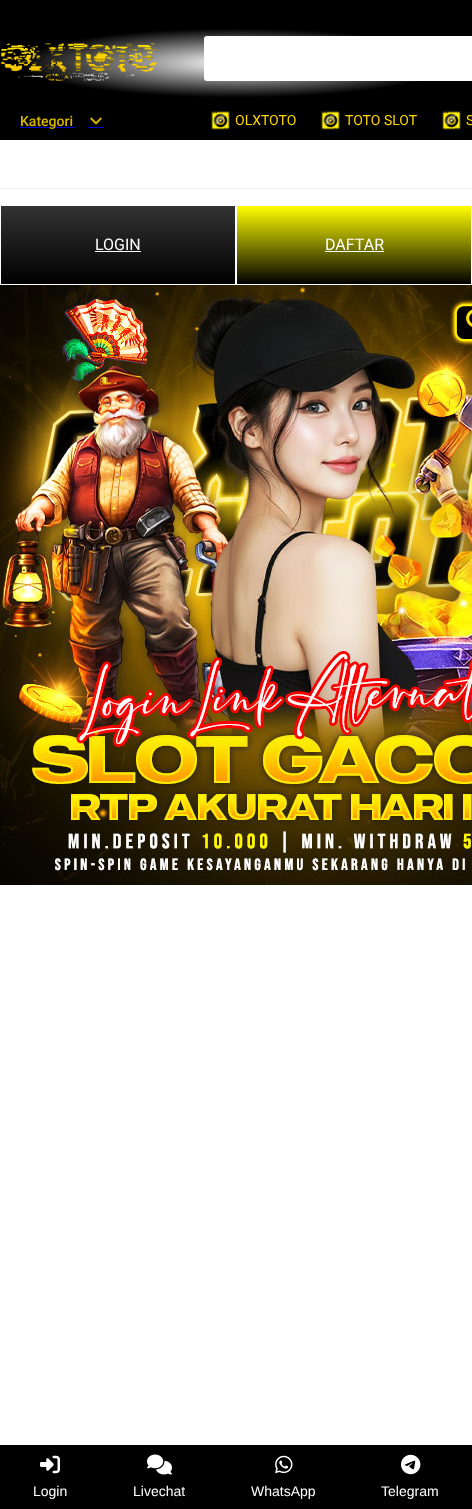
<!DOCTYPE html>
<meta charset="utf-8">
<style>body { margin: 0 } canvas { display: block }</style>
<canvas id="canvas" width="472" height="1509"></canvas>
<img id="img1" src="img_01.png" hidden>
<img id="img2" src="img_02.png" hidden>
<img id="img3" src="img_03.png" hidden>
<img id="img4" src="img_04.png" hidden>
<img id="img5" src="img_05.png" hidden>
<img id="img6" src="img_06.png" hidden>
<img id="img7" src="img_07.png" hidden>
<img id="img8" src="img_08.png" hidden>
<img id="img9" src="img_09.png" hidden>
<script>
window.onload = function () {
	const canvas = document.getElementById("canvas");
	const ctx = canvas.getContext("2d");
	ctx.miterLimit = 4;
	ctx.fontKerning = "normal";
	function txt(s, x, y) {
		ctx.fillText(s, x, y);
	}
	function fill(x, y, w, h) {
		ctx.fillRect(x, y, w, h);
	}
	function round(x, y, w, h, r) {
		ctx.beginPath();
		ctx.roundRect(x, y, w, h, r);
		ctx.fill();
	}
	function img(id, x, y, w, h) {
		ctx.drawImage(document.getElementById(id), x, y, w, h);
	}
	let gradient;

	ctx.fillStyle = "#FFFFFF";
	fill(0, 0, 472, 1509);
	ctx.fillStyle = "#000000";
	fill(0, 0, 472, 25);
	gradient = ctx.createRadialGradient(236, 397.02, 0, 236, 397.02, 334);
	gradient.addColorStop(0, "#FFFFFF");
	gradient.addColorStop(0.65, "#000000");
	ctx.fillStyle = gradient;
	ctx.beginPath();
	ctx.rect(0, 25, 472, 75);
	ctx.save();
	ctx.clip();
	ctx.scale(1, 53 / 334);
	ctx.fillRect(0, 0, 472, 9510);
	ctx.restore();
	img("img1", 0, 43, 158, 38);
	ctx.fillStyle = "#FFFFFF";
	round(204, 36, 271, 45, 3);
	ctx.fillStyle = "#000000";
	fill(0, 100, 472, 40);
	ctx.fillStyle = "#0000CA";
	fill(20, 127, 56, 1);
	fill(88, 127, 16, 1);
	img("img2", 90, 117, 12, 8);
	img("img3", 211, 110, 19, 21);
	img("img4", 321, 110, 19, 21);
	img("img4", 442, 110, 19, 21);
	ctx.fillStyle = "#EFF0F5";
	fill(0, 188, 472, 1);
	gradient = ctx.createLinearGradient(118, 206, 118, 284);
	gradient.addColorStop(0, "#333333");
	gradient.addColorStop(1, "#000000");
	ctx.fillStyle = gradient;
	fill(1, 206, 234, 78);
	ctx.fillStyle = "#FFFFFF";
	fill(95, 251, 46, 1);
	gradient = ctx.createLinearGradient(354, 206, 354, 284);
	gradient.addColorStop(0, "#FFFF00");
	gradient.addColorStop(1, "#000000");
	ctx.fillStyle = gradient;
	fill(237, 206, 234, 78);
	ctx.fillStyle = "#FFFFFF";
	fill(325, 251, 59, 1);
	img("img5", 0, 285, 472, 600);
	ctx.fillStyle = "#000000";
	fill(0, 1445, 472, 64);
	img("img6", 40, 1455, 20, 19);
	img("img7", 147, 1454, 25, 21);
	img("img8", 275, 1455, 18, 19);
	img("img9", 401, 1454, 20, 21);
	ctx.font = "500 14px Roboto";
	ctx.fillStyle = "#D9B700";
	txt("Kategori", 20, 126);
	ctx.font = "14px Roboto";
	ctx.fillStyle = "#FFD700";
	txt("OLXTOTO", 235, 125);
	txt("TOTO SLOT", 345, 125);
	txt("S", 466, 125);
	ctx.font = "16px Roboto";
	ctx.fillStyle = "#FFFFFF";
	txt("LOGIN", 95, 250);
	txt("DAFTAR", 325, 250);
	ctx.font = "14px Liberation Sans";
	txt("Login", 33, 1496);
	txt("Livechat", 133, 1496);
	txt("WhatsApp", 251, 1496);
	txt("Telegram", 381, 1496);
};
</script>
